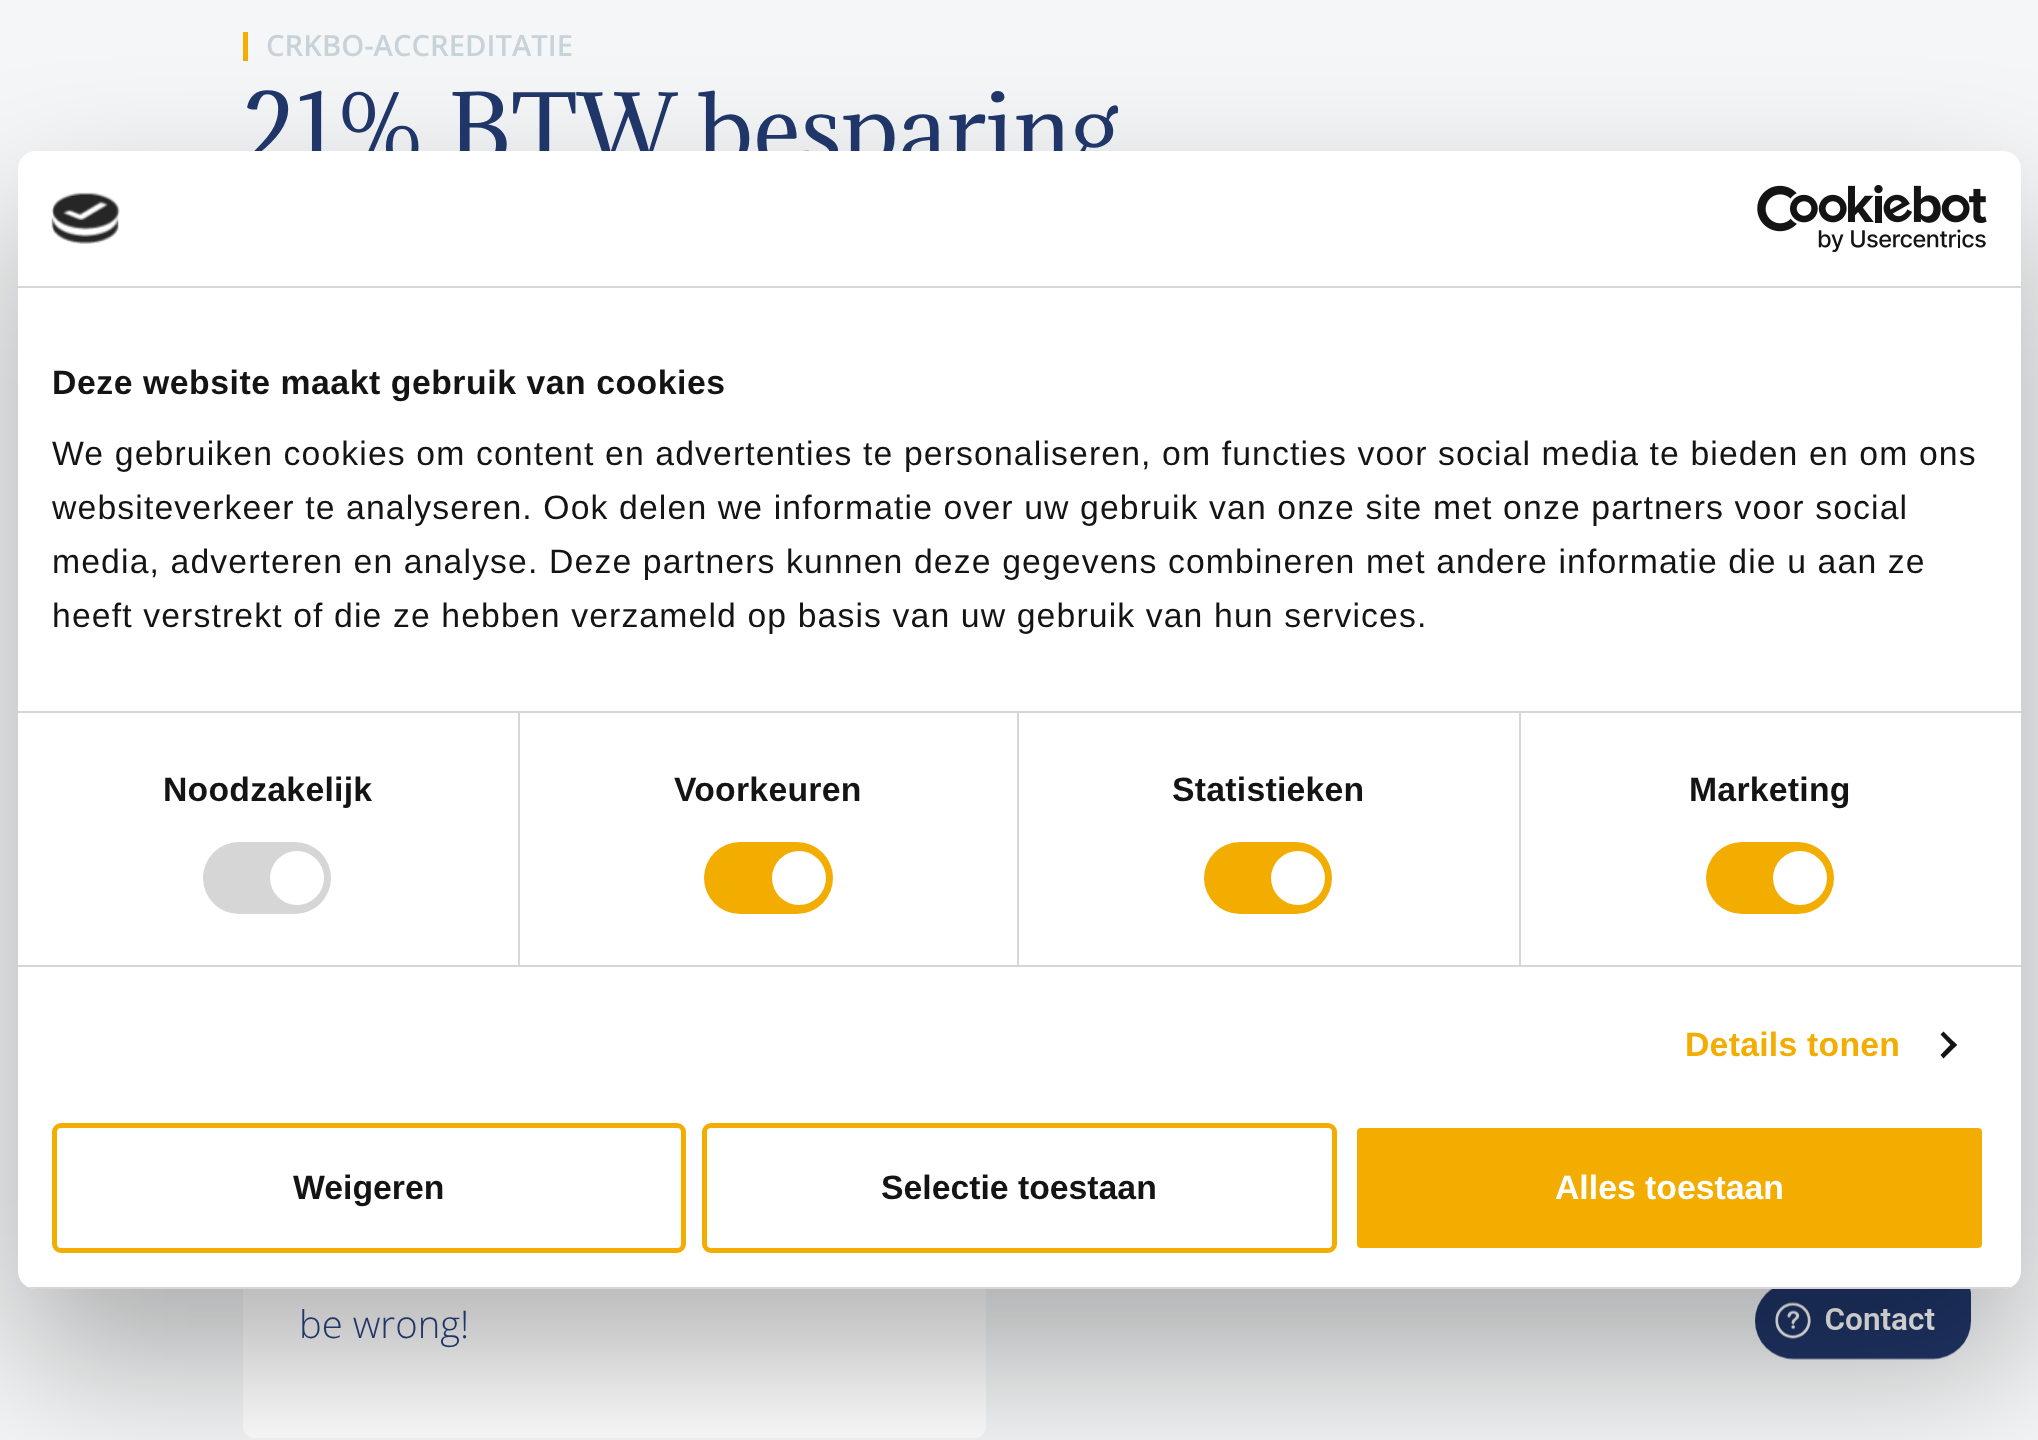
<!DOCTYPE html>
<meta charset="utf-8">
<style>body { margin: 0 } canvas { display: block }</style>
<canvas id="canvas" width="2038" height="1440"></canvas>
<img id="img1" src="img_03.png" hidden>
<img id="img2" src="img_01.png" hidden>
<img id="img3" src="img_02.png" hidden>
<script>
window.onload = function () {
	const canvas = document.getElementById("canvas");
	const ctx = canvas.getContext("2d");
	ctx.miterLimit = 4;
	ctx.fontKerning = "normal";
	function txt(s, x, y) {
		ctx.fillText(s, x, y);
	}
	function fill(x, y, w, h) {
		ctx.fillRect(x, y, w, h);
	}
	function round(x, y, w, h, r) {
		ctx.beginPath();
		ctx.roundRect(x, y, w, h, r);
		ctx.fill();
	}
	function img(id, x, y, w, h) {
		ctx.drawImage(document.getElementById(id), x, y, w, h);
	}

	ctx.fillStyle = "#F4F6F7";
	fill(0, 0, 2038, 1440);
	ctx.fillStyle = "#F2AD00";
	fill(243, 32, 5, 29);
	ctx.fillStyle = "#FFFFFF";
	round(243, 943, 743, 495, 11);
	img("img1", 1755, 1289, 216, 71);
	ctx.fillStyle = "rgba(0, 0, 0, 0.3)";
	ctx.filter = "blur(76.5px)";
	ctx.beginPath();
	ctx.roundRect(18, 223, 2003, 1138, 18);
	ctx.fill();
	ctx.filter = "none";
	ctx.font = "600 29.25px Open Sans";
	ctx.fillStyle = "#C8D2D9";
	txt("CRKBO-ACCREDITATIE", 266, 56);
	ctx.font = "90px Adamina";
	ctx.fillStyle = "#203668";
	txt("21% BTW besparing", 243, 164);
	ctx.font = "300 38.25px Open Sans";
	txt("be wrong!", 299, 1338);
	ctx.fillStyle = "#FFFFFF";
	round(18, 151, 2003, 1138, 18);
	ctx.fillStyle = "#D6D6D6";
	fill(18, 286, 2003, 2);
	img("img2", 51, 192, 69, 52);
	img("img3", 1757, 185, 230, 67);
	fill(18, 711, 2003, 2);
	ctx.letterSpacing = "0.55px";
	ctx.font = "bold 33.75px Liberation Sans";
	ctx.fillStyle = "#141414";
	txt("Deze website maakt gebruik van cookies", 52, 394);
	ctx.letterSpacing = "1.12px";
	ctx.font = "33.75px Liberation Sans";
	txt("We gebruiken cookies om content en advertenties te personaliseren, om functies voor social media te bieden en om ons", 52, 465);
	txt("websiteverkeer te analyseren. Ook delen we informatie over uw gebruik van onze site met onze partners voor social", 52, 519);
	txt("media, adverteren en analyse. Deze partners kunnen deze gegevens combineren met andere informatie die u aan ze", 52, 573);
	txt("heeft verstrekt of die ze hebben verzameld op basis van uw gebruik van hun services.", 52, 627);
	ctx.fillStyle = "#D6D6D6";
	fill(18, 965, 2003, 2);
	fill(518, 713, 2, 252);
	ctx.letterSpacing = "0.25px";
	ctx.font = "bold 33.75px Liberation Sans";
	ctx.fillStyle = "#141414";
	txt("Noodzakelijk", 163, 801);
	ctx.fillStyle = "#D6D6D6";
	round(203, 842, 128, 72, 36);
	ctx.fillStyle = "#FFFFFF";
	ctx.beginPath();
	ctx.arc(297, 878, 27, 0, Math.PI * 2);
	ctx.fill();
	ctx.fillStyle = "#D6D6D6";
	fill(1017, 713, 2, 252);
	ctx.fillStyle = "#141414";
	txt("Voorkeuren", 674, 801);
	ctx.fillStyle = "#F2AD00";
	round(704, 842, 129, 72, 36);
	ctx.fillStyle = "#FFFFFF";
	ctx.beginPath();
	ctx.arc(799, 878, 27, 0, Math.PI * 2);
	ctx.fill();
	ctx.fillStyle = "#D6D6D6";
	fill(1519, 713, 2, 252);
	ctx.fillStyle = "#141414";
	txt("Statistieken", 1172, 801);
	ctx.fillStyle = "#F2AD00";
	round(1204, 842, 128, 72, 36);
	ctx.fillStyle = "#FFFFFF";
	ctx.beginPath();
	ctx.arc(1298, 878, 27, 0, Math.PI * 2);
	ctx.fill();
	ctx.fillStyle = "#141414";
	txt("Marketing", 1689, 801);
	ctx.fillStyle = "#F2AD00";
	round(1706, 842, 128, 72, 36);
	ctx.fillStyle = "#FFFFFF";
	ctx.beginPath();
	ctx.arc(1800, 878, 27, 0, Math.PI * 2);
	ctx.fill();
	ctx.fillStyle = "#F2AD00";
	txt("Details tonen", 1685, 1056);
	ctx.fillStyle = "#141414";
	ctx.beginPath();
	ctx.moveTo(1943.5, 1031.5);
	ctx.lineTo(1957, 1045);
	ctx.lineTo(1953.5, 1048);
	ctx.lineTo(1940.5, 1034.5);
	ctx.closePath();
	ctx.fill();
	ctx.beginPath();
	ctx.moveTo(1953.5, 1041.5);
	ctx.lineTo(1957, 1045);
	ctx.lineTo(1943.5, 1058.5);
	ctx.lineTo(1940.5, 1055);
	ctx.closePath();
	ctx.fill();
	ctx.save();
	ctx.beginPath();
	ctx.roundRect(18, 151, 2003, 1138, 18);
	ctx.clip();
	ctx.fillStyle = "#D6D6D6";
	fill(28, 1287, 1983, 2);
	ctx.restore();
	ctx.beginPath();
	ctx.roundRect(54.5, 1125.5, 629, 125, 6.5);
	ctx.strokeStyle = "#F2AD00";
	ctx.lineWidth = 5;
	ctx.stroke();
	ctx.letterSpacing = "0px";
	txt("Weigeren", 293, 1199);
	ctx.beginPath();
	ctx.roundRect(704.5, 1125.5, 630, 125, 6.5);
	ctx.stroke();
	txt("Selectie toestaan", 881, 1199);
	ctx.fillStyle = "#F2AD00";
	ctx.beginPath();
	ctx.roundRect(1354.5, 1125.5, 630, 125, 6.5);
	ctx.fill();
	ctx.strokeStyle = "#FFFFFF";
	ctx.stroke();
	ctx.fillStyle = "#FFFFFF";
	txt("Alles toestaan", 1555, 1199);
};
</script>
